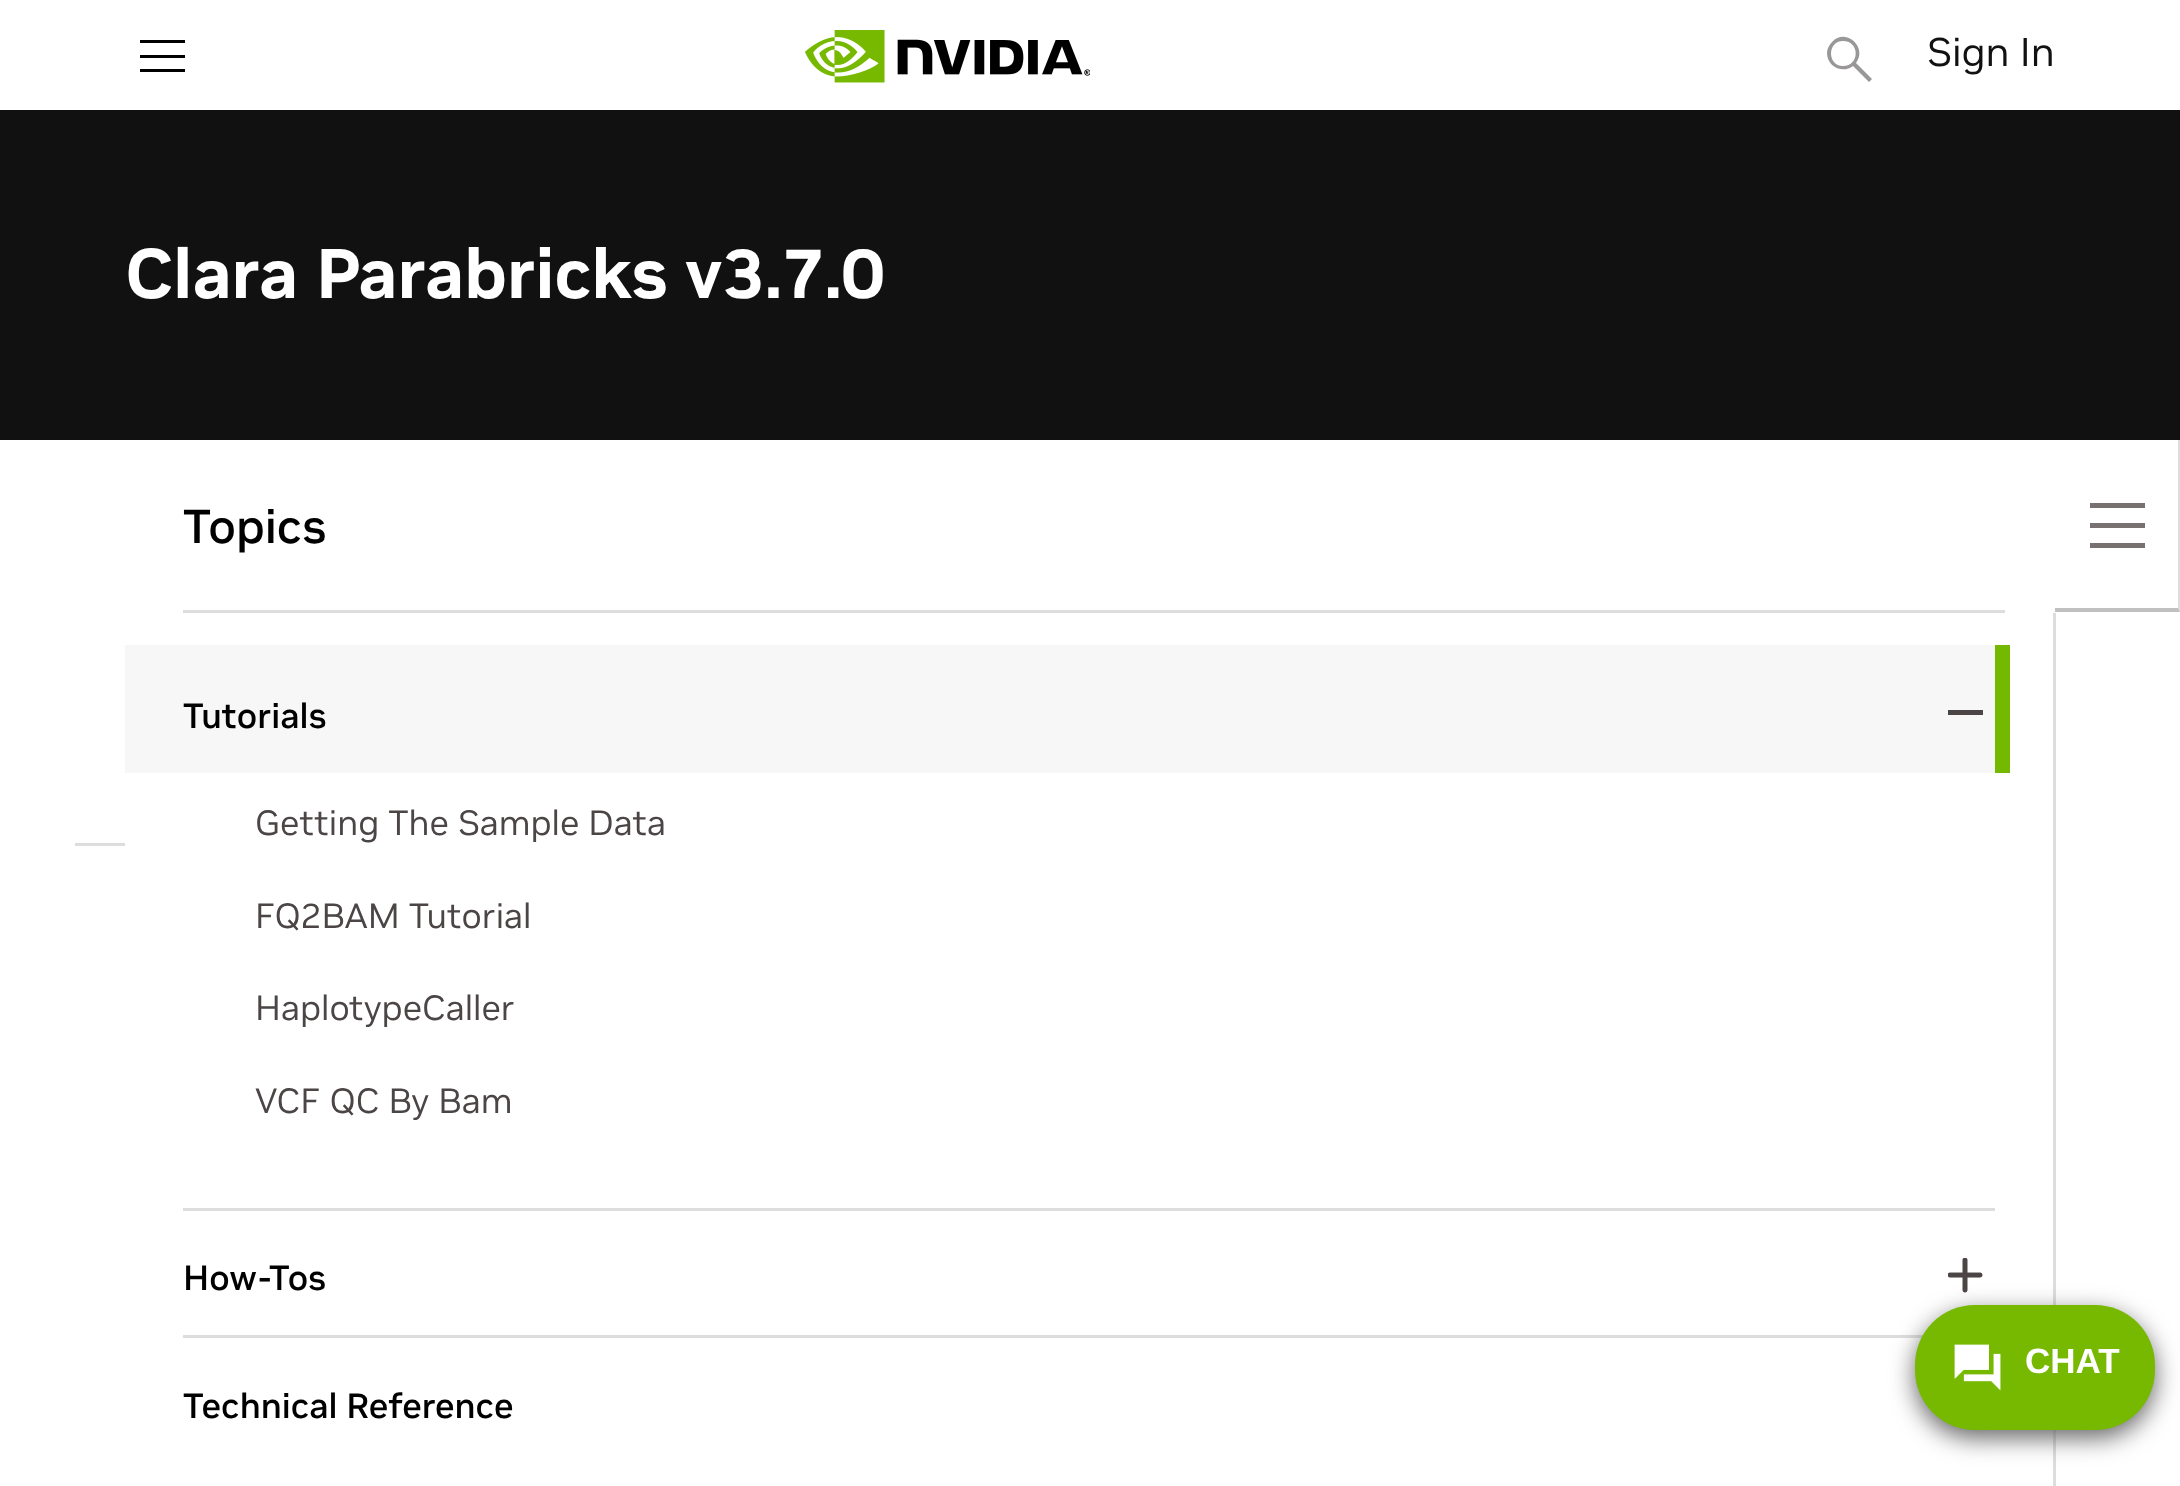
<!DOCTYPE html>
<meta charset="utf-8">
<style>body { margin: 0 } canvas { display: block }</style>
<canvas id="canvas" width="2180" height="1486"></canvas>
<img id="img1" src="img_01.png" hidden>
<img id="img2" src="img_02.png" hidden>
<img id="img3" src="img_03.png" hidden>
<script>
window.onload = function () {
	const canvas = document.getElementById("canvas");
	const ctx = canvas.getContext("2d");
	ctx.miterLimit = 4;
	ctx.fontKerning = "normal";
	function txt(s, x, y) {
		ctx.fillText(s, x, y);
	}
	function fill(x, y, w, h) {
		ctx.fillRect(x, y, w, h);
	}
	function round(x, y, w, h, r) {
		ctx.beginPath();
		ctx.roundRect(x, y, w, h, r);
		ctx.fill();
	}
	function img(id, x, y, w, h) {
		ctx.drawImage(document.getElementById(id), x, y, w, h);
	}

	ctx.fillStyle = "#FFFFFF";
	fill(0, 0, 2180, 1486);
	ctx.fillStyle = "#000000";
	ctx.beginPath();
	ctx.moveTo(140, 58);
	ctx.lineTo(140, 55);
	ctx.lineTo(185, 55);
	ctx.lineTo(185, 58);
	ctx.closePath();
	ctx.moveTo(140, 43);
	ctx.lineTo(140, 40);
	ctx.lineTo(185, 40);
	ctx.lineTo(185, 43);
	ctx.closePath();
	ctx.moveTo(140, 72);
	ctx.lineTo(140, 69);
	ctx.lineTo(185, 69);
	ctx.lineTo(185, 72);
	ctx.closePath();
	ctx.fill("evenodd");
	img("img1", 805, 30, 285, 53);
	ctx.fillStyle = "#9A9797";
	ctx.beginPath();
	ctx.moveTo(1843, 41);
	ctx.bezierCurveTo(1827, 41, 1827, 66, 1843, 66);
	ctx.bezierCurveTo(1860, 66, 1860, 41, 1843, 41);
	ctx.closePath();
	ctx.moveTo(1827, 53);
	ctx.bezierCurveTo(1827, 49, 1829, 45, 1832, 42);
	ctx.bezierCurveTo(1846, 27, 1868, 48, 1856, 63);
	ctx.lineTo(1872, 79);
	ctx.lineTo(1869, 82);
	ctx.lineTo(1853, 66);
	ctx.bezierCurveTo(1843, 74, 1827, 67, 1827, 53);
	ctx.closePath();
	ctx.fill("evenodd");
	ctx.fillStyle = "#111111";
	fill(0, 110, 2180, 330);
	ctx.fillStyle = "#DDDDDD";
	fill(75, 843, 50, 3);
	fill(183, 610, 1822, 3);
	ctx.beginPath();
	ctx.moveTo(2180, 440);
	ctx.lineTo(2180, 612);
	ctx.lineTo(2178, 608);
	ctx.lineTo(2178, 440);
	ctx.closePath();
	ctx.fill();
	ctx.fillStyle = "#C0C0C0";
	ctx.beginPath();
	ctx.moveTo(2180, 612);
	ctx.lineTo(2055, 612);
	ctx.lineTo(2055, 608);
	ctx.lineTo(2178, 608);
	ctx.closePath();
	ctx.fill();
	ctx.fillStyle = "#787171";
	fill(2090, 503, 55, 5);
	fill(2090, 523, 55, 5);
	fill(2090, 543, 55, 5);
	ctx.fillStyle = "#DDDDDD";
	fill(2053, 613, 3, 873);
	ctx.fillStyle = "#F7F7F7";
	fill(125, 645, 1870, 128);
	ctx.fillStyle = "#4B4545";
	fill(1948, 710, 35, 5);
	ctx.fillStyle = "#74B900";
	fill(1995, 645, 15, 128);
	ctx.fillStyle = "#DDDDDD";
	fill(183, 1208, 1812, 3);
	img("img2", 1948, 1258, 35, 35);
	fill(183, 1335, 1740, 3);
	ctx.fillStyle = "#666666";
	ctx.filter = "blur(12.5px)";
	ctx.beginPath();
	ctx.roundRect(1915, 1313, 240, 125, 60);
	ctx.fill();
	ctx.filter = "none";
	ctx.fillStyle = "#76B900";
	round(1915, 1305, 240, 125, 60);
	img("img3", 1954, 1344, 47, 47);
	ctx.font = "40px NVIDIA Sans";
	ctx.fillStyle = "#111111";
	txt("Sign In", 1927, 66);
	ctx.font = "bold 70px NVIDIA Sans";
	ctx.fillStyle = "#FFFFFF";
	txt("Clara Parabricks v3.7.0", 125, 298);
	ctx.font = "500 47.5px NVIDIA Sans";
	ctx.fillStyle = "#000000";
	txt("Topics", 183, 543);
	ctx.font = "500 35px NVIDIA Sans";
	txt("Tutorials", 183, 728);
	ctx.font = "35px NVIDIA Sans";
	ctx.fillStyle = "#4B4545";
	txt("Getting The Sample Data", 255, 835);
	txt("FQ2BAM Tutorial", 255, 928);
	txt("HaplotypeCaller", 255, 1020);
	txt("VCF QC By Bam", 255, 1113);
	ctx.font = "500 35px NVIDIA Sans";
	ctx.fillStyle = "#000000";
	txt("How-Tos", 183, 1290);
	txt("Technical Reference", 183, 1418);
	ctx.font = "bold 35px Liberation Sans";
	ctx.fillStyle = "#FFFFFF";
	txt("CHAT", 2025, 1373);
};
</script>
